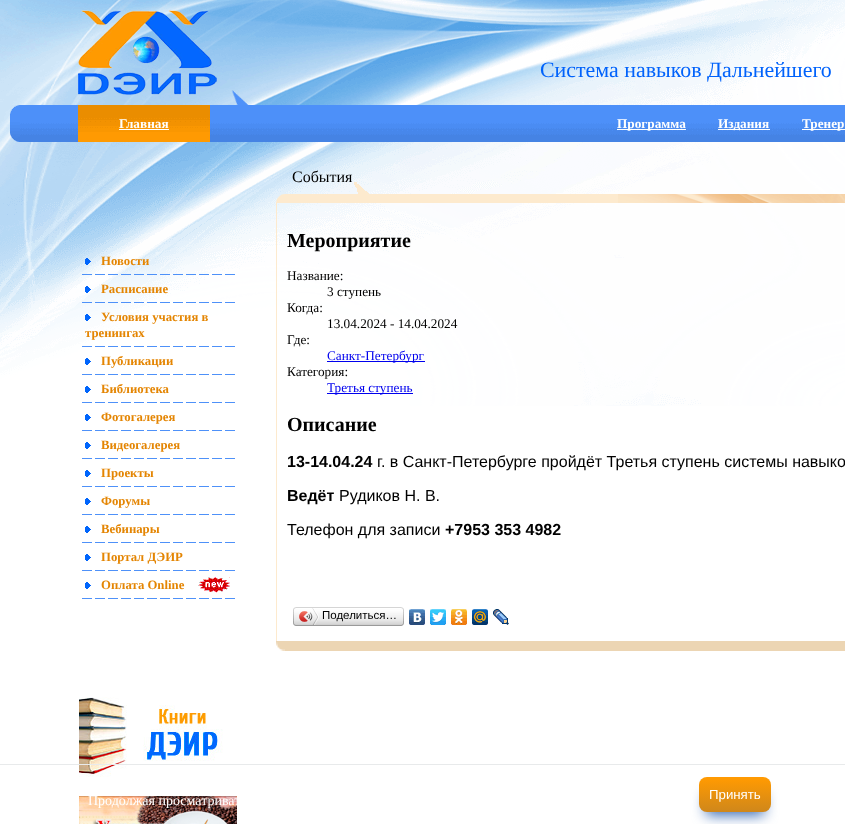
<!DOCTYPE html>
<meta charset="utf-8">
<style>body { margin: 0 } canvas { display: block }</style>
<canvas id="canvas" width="845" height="824"></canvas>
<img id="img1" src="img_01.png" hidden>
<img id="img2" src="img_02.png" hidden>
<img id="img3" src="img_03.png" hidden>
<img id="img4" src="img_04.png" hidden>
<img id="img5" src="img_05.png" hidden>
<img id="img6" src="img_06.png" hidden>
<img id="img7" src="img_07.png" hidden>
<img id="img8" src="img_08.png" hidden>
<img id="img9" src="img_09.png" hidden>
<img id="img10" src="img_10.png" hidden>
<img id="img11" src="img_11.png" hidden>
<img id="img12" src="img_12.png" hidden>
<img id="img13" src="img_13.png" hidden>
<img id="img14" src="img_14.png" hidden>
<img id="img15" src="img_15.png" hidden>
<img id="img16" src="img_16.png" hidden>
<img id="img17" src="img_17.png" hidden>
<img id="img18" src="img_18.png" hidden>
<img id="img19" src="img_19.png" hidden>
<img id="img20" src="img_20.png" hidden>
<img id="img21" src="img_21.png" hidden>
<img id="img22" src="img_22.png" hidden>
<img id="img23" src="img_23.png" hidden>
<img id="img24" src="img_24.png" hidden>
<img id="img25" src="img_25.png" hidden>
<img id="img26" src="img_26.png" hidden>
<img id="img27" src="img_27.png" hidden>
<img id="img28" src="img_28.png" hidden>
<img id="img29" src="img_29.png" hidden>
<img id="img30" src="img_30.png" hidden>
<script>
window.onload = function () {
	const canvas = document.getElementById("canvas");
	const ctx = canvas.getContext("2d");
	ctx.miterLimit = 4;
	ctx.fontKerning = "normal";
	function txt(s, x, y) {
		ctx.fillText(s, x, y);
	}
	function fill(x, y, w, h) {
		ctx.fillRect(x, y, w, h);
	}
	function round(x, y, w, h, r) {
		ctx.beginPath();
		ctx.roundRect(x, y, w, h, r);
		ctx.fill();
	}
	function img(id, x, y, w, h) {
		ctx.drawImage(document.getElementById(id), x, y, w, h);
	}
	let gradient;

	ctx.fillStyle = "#FFFFFF";
	fill(0, 0, 845, 824);
	img("img1", 0, 0, 845, 406);
	img("img2", 78, 10, 139, 85);
	img("img3", 231, 90, 18, 15);
	img("img4", 10, 105, 10, 37);
	img("img5", 20, 105, 825, 37);
	img("img6", 78, 105, 132, 37);
	fill(119, 129, 50, 1);
	fill(617, 129, 69, 1);
	fill(718, 129, 52, 1);
	fill(802, 129, 43, 1);
	img("img7", 82, 274, 153, 1);
	img("img8", 85, 258, 6, 7);
	img("img9", 82, 302, 153, 1);
	img("img10", 85, 286, 6, 7);
	img("img11", 82, 346, 153, 1);
	img("img12", 85, 314, 6, 7);
	img("img13", 82, 374, 153, 1);
	img("img14", 85, 358, 6, 7);
	img("img13", 82, 402, 153, 1);
	img("img14", 85, 386, 6, 7);
	img("img13", 82, 430, 153, 1);
	img("img14", 85, 414, 6, 7);
	img("img13", 82, 458, 153, 1);
	img("img14", 85, 442, 6, 7);
	img("img13", 82, 486, 153, 1);
	img("img14", 85, 470, 6, 7);
	img("img13", 82, 514, 153, 1);
	img("img14", 85, 498, 6, 7);
	img("img13", 82, 542, 153, 1);
	img("img14", 85, 526, 6, 7);
	img("img13", 82, 570, 153, 1);
	img("img14", 85, 554, 6, 7);
	img("img13", 82, 598, 153, 1);
	img("img14", 85, 582, 6, 7);
	img("img15", 198, 577, 32, 16);
	img("img16", 79, 697, 144, 80);
	img("img17", 79, 796, 158, 28);
	img("img18", 354, 182, 15, 12);
	ctx.fillStyle = "#FDEACE";
	fill(276, 202, 1, 439);
	img("img19", 276, 194, 9, 9);
	fill(285, 194, 333, 9);
	img("img20", 618, 194, 227, 9);
	ctx.fillStyle = "#0000EE";
	fill(327, 361, 98, 1);
	fill(327, 393, 86, 1);
	img("img21", 296, 607, 105, 19);
	img("img22", 293, 607, 3, 19);
	img("img23", 299, 608, 20, 17);
	img("img24", 401, 607, 3, 19);
	img("img25", 409, 609, 16, 16);
	img("img26", 430, 609, 16, 16);
	img("img27", 451, 609, 16, 16);
	img("img28", 472, 609, 16, 16);
	img("img29", 493, 609, 16, 16);
	ctx.fillStyle = "#ECD5B3";
	fill(276, 641, 569, 10);
	img("img30", 276, 642, 9, 9);
	ctx.fillStyle = "#E8EAEB";
	fill(0, 764, 845, 1);
	ctx.fillStyle = "#3467B3";
	ctx.filter = "blur(7px)";
	ctx.beginPath();
	ctx.roundRect(706, 794, 58, 21, 1);
	ctx.fill();
	ctx.filter = "none";
	gradient = ctx.createLinearGradient(735, 777, 735, 812);
	gradient.addColorStop(0.05, "#FF9A02");
	gradient.addColorStop(1, "#CF871B");
	ctx.fillStyle = gradient;
	round(699, 777, 72, 35, 8);
	ctx.font = "21.9px Liberation Serif";
	ctx.fillStyle = "#0062FB";
	txt("Система навыков Дальнейшего", 540, 77);
	ctx.font = "bold 13.25px Liberation Serif";
	ctx.fillStyle = "#FFFFFF";
	txt("Главная", 119, 128);
	txt("Программа", 617, 128);
	txt("Издания", 718, 128);
	txt("Тренер", 802, 128);
	ctx.font = "bold 12.75px Liberation Serif";
	ctx.fillStyle = "#E48502";
	txt("Новости", 101, 265);
	txt("Расписание", 101, 293);
	txt("Условия участия в", 101, 321);
	txt("тренингах", 85, 337);
	txt("Публикации", 101, 365);
	txt("Библиотека", 101, 393);
	txt("Фотогалерея", 101, 421);
	txt("Видеогалерея", 101, 449);
	txt("Проекты", 101, 477);
	txt("Форумы", 101, 505);
	txt("Вебинары", 101, 533);
	txt("Портал ДЭИР", 101, 561);
	txt("Оплата Online", 101, 589);
	ctx.font = "16px Liberation Serif";
	ctx.fillStyle = "#000000";
	txt("События", 292, 182);
	ctx.font = "bold 20px Liberation Serif";
	txt("Мероприятие", 287, 247);
	ctx.font = "13.25px Liberation Serif";
	txt("Название:", 287, 280);
	txt("3 ступень", 327, 296);
	txt("Когда:", 287, 312);
	txt("13.04.2024 - 14.04.2024", 327, 328);
	txt("Где:", 287, 344);
	ctx.fillStyle = "#0000EE";
	txt("Санкт-Петербург", 327, 360);
	ctx.fillStyle = "#000000";
	txt("Категория:", 287, 376);
	ctx.fillStyle = "#0000EE";
	txt("Третья ступень", 327, 392);
	ctx.font = "bold 20px Liberation Serif";
	ctx.fillStyle = "#000000";
	txt("Описание", 287, 431);
	ctx.font = "bold 16px Liberation Sans";
	txt("13-14.04.24", 287, 467);
	ctx.font = "16px Liberation Sans";
	txt("г. в Санкт-Петербурге пройдёт Третья ступень системы навыко", 377, 467);
	ctx.font = "bold 16px Liberation Sans";
	txt("Ведёт", 287, 501);
	ctx.font = "16px Liberation Sans";
	txt("Рудиков Н. В.", 339, 501);
	txt("Телефон для записи", 287, 535);
	ctx.font = "bold 16px Liberation Sans";
	txt("+7953 353 4982", 445, 535);
	ctx.font = "11.5px Liberation Sans";
	txt("Поделиться…", 322, 619);
	ctx.font = "14px Liberation Serif";
	ctx.fillStyle = "#FFFFFF";
	txt("Продолжая просматриват", 88, 805);
	ctx.font = "13.25px Liberation Sans";
	txt("Принять", 709, 799);
};
</script>
